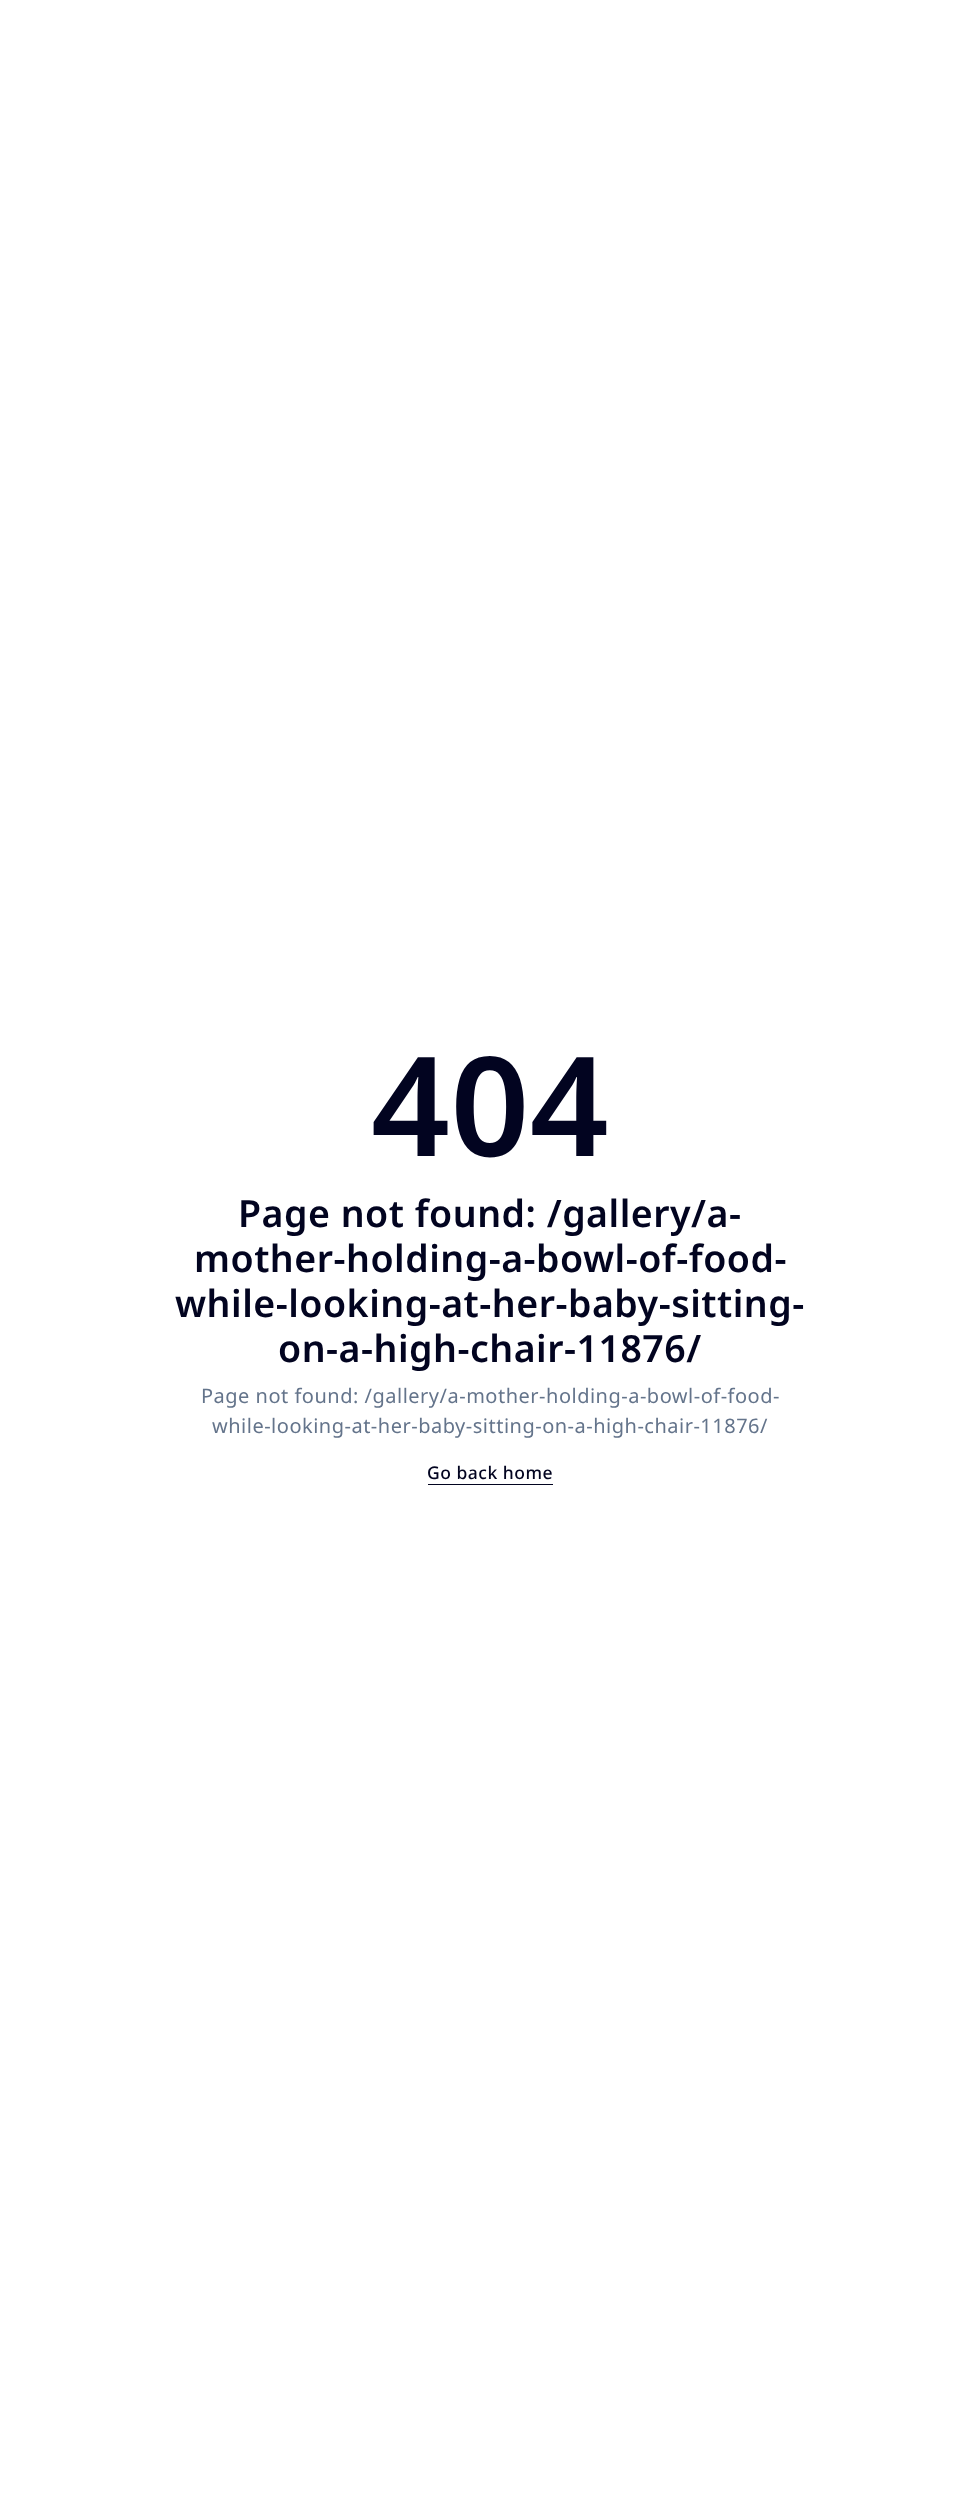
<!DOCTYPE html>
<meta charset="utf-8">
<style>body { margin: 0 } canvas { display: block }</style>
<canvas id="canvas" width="979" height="2518"></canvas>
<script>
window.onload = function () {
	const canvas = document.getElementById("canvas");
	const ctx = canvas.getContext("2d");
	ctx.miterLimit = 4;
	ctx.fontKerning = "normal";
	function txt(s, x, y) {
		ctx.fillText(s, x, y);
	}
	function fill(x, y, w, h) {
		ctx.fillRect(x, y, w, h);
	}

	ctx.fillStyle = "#FFFFFF";
	fill(0, 0, 979, 2518);
	ctx.fillStyle = "#020420";
	fill(428, 1484, 125, 1);
	ctx.letterSpacing = "0.5px";
	ctx.font = "600 138px Noto Sans";
	txt("404", 371, 1156);
	ctx.font = "600 37.5px Noto Sans";
	txt("Page not found: /gallery/a-", 238, 1227);
	txt("mother-holding-a-bowl-of-food-", 194, 1272);
	txt("while-looking-at-her-baby-sitting-", 175, 1317);
	txt("on-a-high-chair-11876/", 278, 1362);
	ctx.font = "20px Noto Sans";
	ctx.fillStyle = "#64748B";
	txt("Page not found: /gallery/a-mother-holding-a-bowl-of-food-", 201, 1403);
	txt("while-looking-at-her-baby-sitting-on-a-high-chair-11876/", 212, 1433);
	ctx.font = "500 17.5px Noto Sans";
	ctx.fillStyle = "#020420";
	txt("Go back home", 427, 1479);
};
</script>
